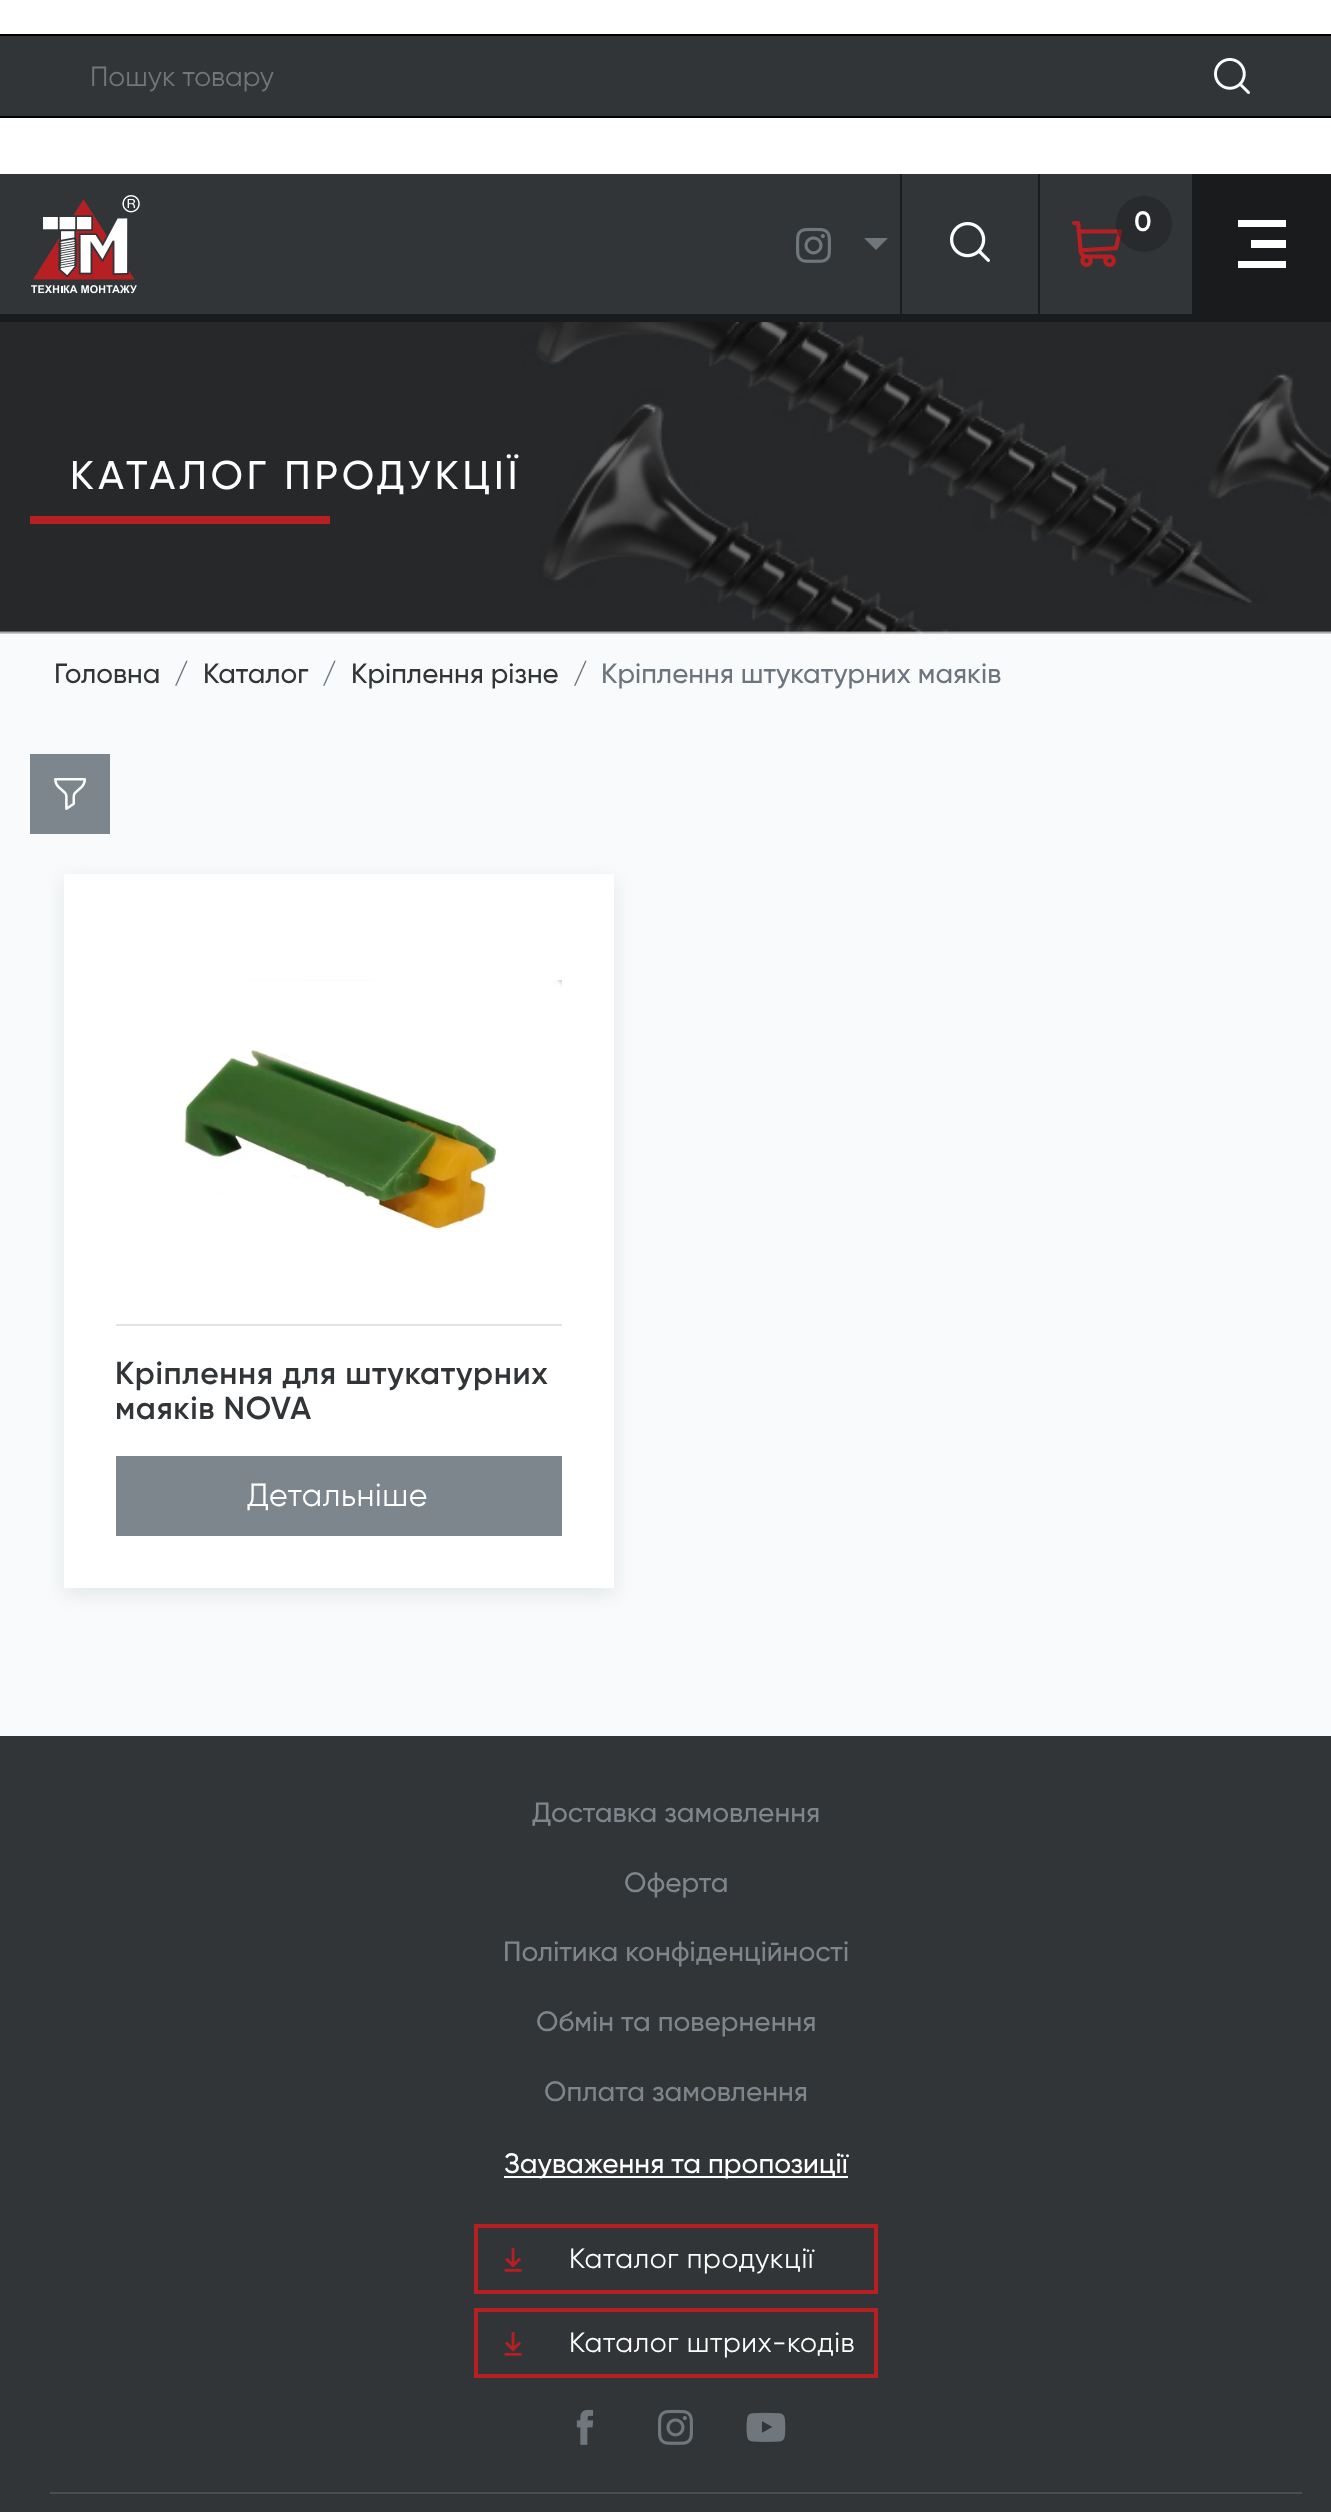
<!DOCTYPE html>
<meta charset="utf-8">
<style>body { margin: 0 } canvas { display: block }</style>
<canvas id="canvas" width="1331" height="2512"></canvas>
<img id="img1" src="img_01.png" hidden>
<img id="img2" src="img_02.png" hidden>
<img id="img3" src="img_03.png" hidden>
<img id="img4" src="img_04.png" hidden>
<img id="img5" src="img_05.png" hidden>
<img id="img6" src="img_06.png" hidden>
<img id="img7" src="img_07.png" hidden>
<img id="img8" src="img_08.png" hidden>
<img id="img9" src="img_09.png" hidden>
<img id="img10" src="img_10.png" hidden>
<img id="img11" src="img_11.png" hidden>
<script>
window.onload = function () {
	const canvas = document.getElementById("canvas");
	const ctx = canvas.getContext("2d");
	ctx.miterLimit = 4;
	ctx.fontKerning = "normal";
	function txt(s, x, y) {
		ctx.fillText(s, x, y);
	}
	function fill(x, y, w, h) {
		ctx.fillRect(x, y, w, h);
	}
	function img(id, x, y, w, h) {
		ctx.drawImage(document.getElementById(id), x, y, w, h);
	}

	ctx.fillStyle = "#FFFFFF";
	fill(0, 0, 1331, 2512);
	ctx.fillStyle = "#323537";
	fill(0, 174, 1192, 140);
	ctx.fillStyle = "#191B1D";
	fill(0, 314, 1331, 8);
	ctx.fillStyle = "#323537";
	fill(0, 36, 1331, 80);
	ctx.fillStyle = "#000000";
	fill(0, 34, 1331, 2);
	fill(0, 116, 1331, 2);
	img("img1", 1214, 58, 36, 36);
	img("img2", 31, 195, 109, 99);
	ctx.fillStyle = "#191B1D";
	fill(1038, 174, 2, 140);
	fill(900, 174, 2, 140);
	img("img3", 950, 222, 40, 40);
	img("img4", 1072, 221, 51, 46);
	ctx.fillStyle = "rgba(25, 27, 29, 0.4)";
	ctx.beginPath();
	ctx.arc(1144, 224, 28, 0, Math.PI * 2);
	ctx.fill();
	ctx.fillStyle = "#191B1D";
	fill(1192, 174, 139, 140);
	ctx.fillStyle = "#FFFFFF";
	ctx.beginPath();
	ctx.moveTo(1238, 220);
	ctx.lineTo(1286, 220);
	ctx.lineTo(1286, 227);
	ctx.lineTo(1238, 227);
	ctx.closePath();
	ctx.moveTo(1251, 240);
	ctx.lineTo(1286, 240);
	ctx.lineTo(1286, 248);
	ctx.lineTo(1251, 248);
	ctx.closePath();
	ctx.moveTo(1238, 261);
	ctx.lineTo(1286, 261);
	ctx.lineTo(1286, 268);
	ctx.lineTo(1238, 268);
	ctx.closePath();
	ctx.fill();
	img("img5", 796, 227, 35, 36);
	ctx.fillStyle = "#6F777C";
	ctx.beginPath();
	ctx.moveTo(864, 238);
	ctx.lineTo(888, 238);
	ctx.lineTo(876, 250);
	ctx.closePath();
	ctx.fill();
	ctx.fillStyle = "#F9FAFB";
	fill(0, 634, 1331, 1102);
	img("img6", 0, 322, 1331, 312);
	ctx.fillStyle = "#B72023";
	fill(30, 516, 300, 8);
	ctx.fillStyle = "#7C868C";
	fill(30, 754, 80, 80);
	img("img7", 54, 778, 32, 32);
	ctx.fillStyle = "rgba(222, 228, 232, 0.9)";
	ctx.filter = "blur(10px)";
	ctx.beginPath();
	ctx.rect(64, 880, 550, 714);
	ctx.fill();
	ctx.filter = "none";
	ctx.fillStyle = "#FFFFFF";
	fill(64, 874, 550, 714);
	ctx.fillStyle = "#DEE4E8";
	fill(116, 1324, 446, 2);
	img("img8", 184, 979, 378, 254);
	ctx.fillStyle = "#7C868C";
	fill(116, 1456, 446, 80);
	ctx.fillStyle = "#323537";
	fill(0, 1736, 1331, 776);
	ctx.fillStyle = "#FFFFFF";
	fill(504, 2176, 344, 2);
	ctx.strokeStyle = "#B72023";
	ctx.lineWidth = 4;
	ctx.strokeRect(476, 2226, 400, 66);
	img("img9", 504, 2248, 18, 24);
	ctx.strokeRect(476, 2310, 400, 66);
	img("img9", 504, 2332, 18, 24);
	img("img10", 576, 2409, 18, 36);
	img("img5", 658, 2409, 35, 36);
	img("img11", 746, 2412, 40, 30);
	ctx.fillStyle = "#494E51";
	fill(50, 2492, 1252, 2);
	ctx.font = "27.8px Gilroy";
	ctx.fillStyle = "#757575";
	txt("Пошук товару", 90, 86);
	ctx.letterSpacing = "1px";
	ctx.font = "600 28px Gilroy";
	ctx.fillStyle = "#FFFFFF";
	txt("0", 1134, 231);
	ctx.letterSpacing = "4px";
	ctx.font = "500 40px Gilroy";
	txt("КАТАЛОГ ПРОДУКЦIЇ", 70, 489);
	ctx.letterSpacing = "0px";
	ctx.font = "500 27.8px Gilroy";
	ctx.fillStyle = "#323537";
	txt("Головна", 54, 683);
	ctx.fillStyle = "#6C757D";
	txt("/", 174, 683);
	ctx.fillStyle = "#323537";
	txt("Каталог", 203, 683);
	ctx.fillStyle = "#6C757D";
	txt("/", 322, 683);
	ctx.fillStyle = "#323537";
	txt("Кріплення різне", 351, 683);
	ctx.fillStyle = "#6C757D";
	txt("/", 573, 683);
	txt("Кріплення штукатурних маяків", 601, 683);
	ctx.letterSpacing = "0.6px";
	ctx.font = "600 31.8px Gilroy";
	ctx.fillStyle = "#323537";
	txt("Кріплення для штукатурних", 115, 1384);
	txt("маяків NOVA", 115, 1419);
	ctx.font = "32px Gilroy";
	ctx.fillStyle = "#FFFFFF";
	txt("Детальніше", 247, 1506);
	ctx.letterSpacing = "0px";
	ctx.font = "500 28px Gilroy";
	ctx.fillStyle = "#7E868C";
	txt("Доставка замовлення", 532, 1822);
	txt("Оферта", 624, 1892);
	txt("Політика конфіденційності", 503, 1961);
	txt("Обмін та повернення", 536, 2031);
	txt("Оплата замовлення", 544, 2101);
	ctx.fillStyle = "#FFFFFF";
	txt("Зауваження та пропозиції", 504, 2173);
	ctx.letterSpacing = "0.6px";
	ctx.font = "28px Gilroy";
	txt("Каталог продукцiї", 569, 2268);
	txt("Каталог штрих-кодів", 569, 2352);
};
</script>
